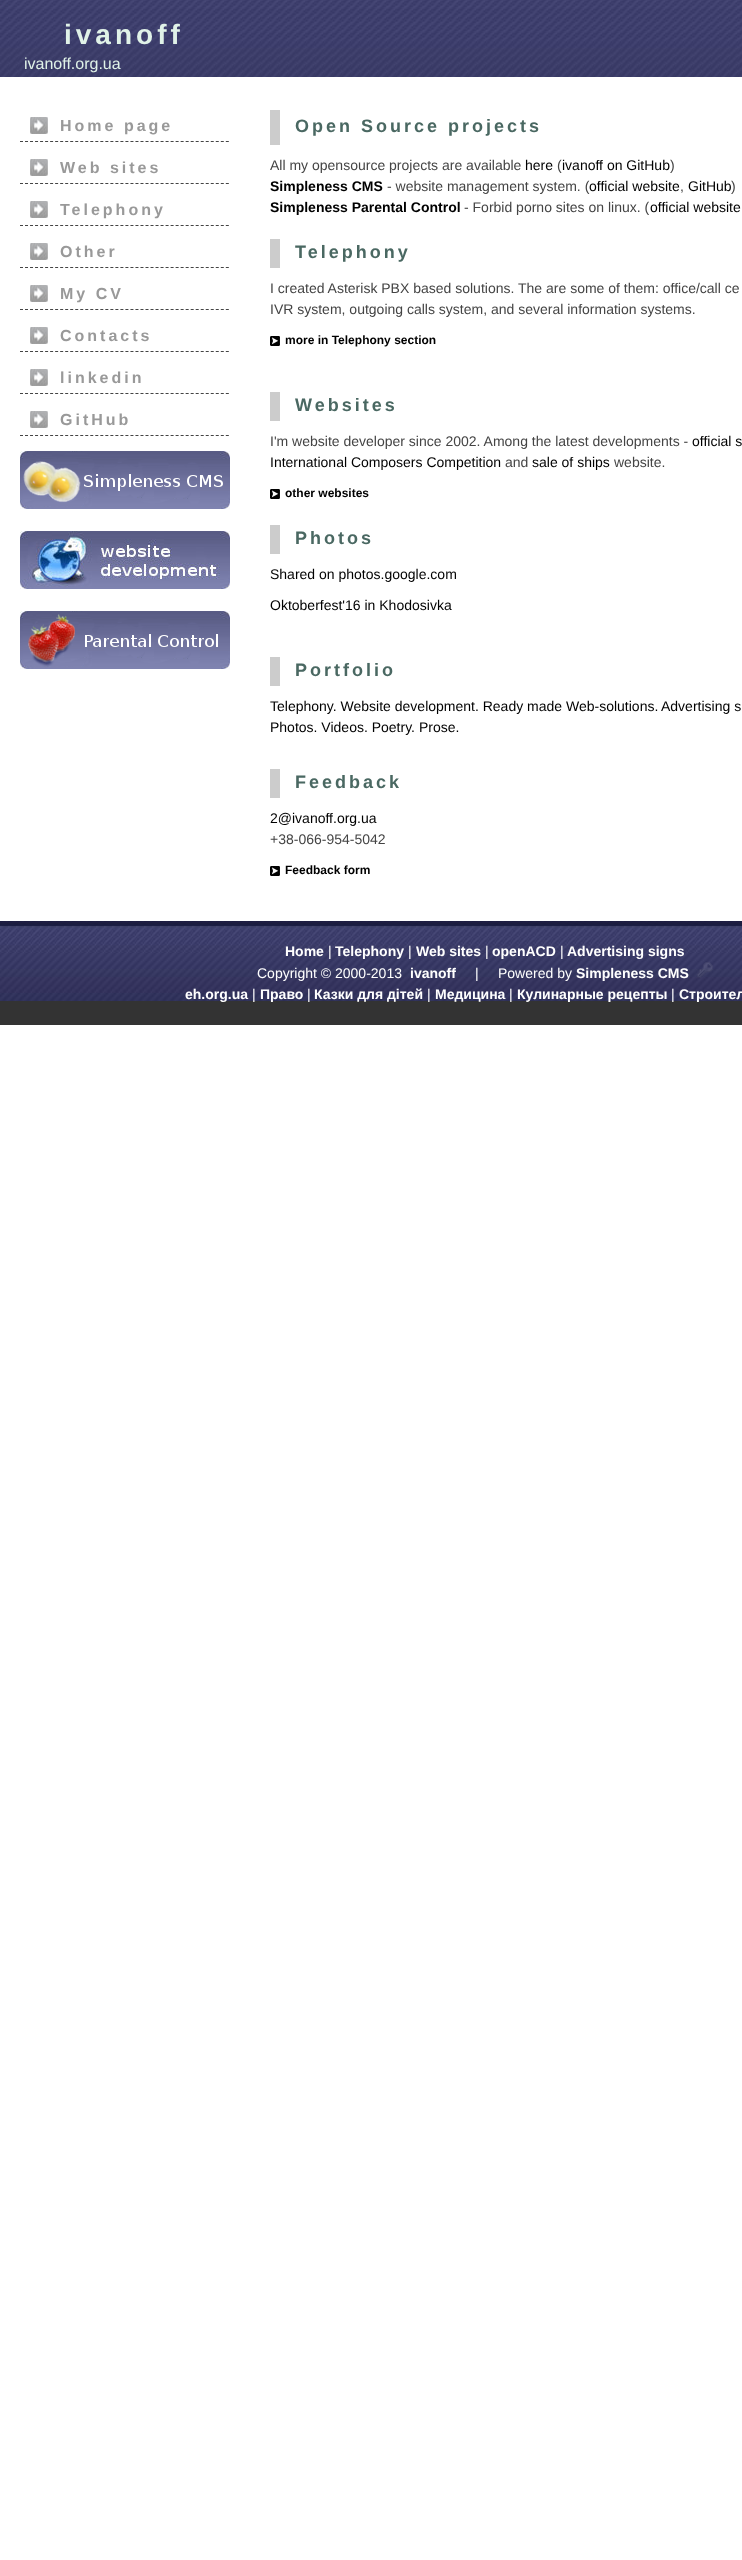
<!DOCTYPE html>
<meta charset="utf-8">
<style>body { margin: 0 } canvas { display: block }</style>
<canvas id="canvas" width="742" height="2560"></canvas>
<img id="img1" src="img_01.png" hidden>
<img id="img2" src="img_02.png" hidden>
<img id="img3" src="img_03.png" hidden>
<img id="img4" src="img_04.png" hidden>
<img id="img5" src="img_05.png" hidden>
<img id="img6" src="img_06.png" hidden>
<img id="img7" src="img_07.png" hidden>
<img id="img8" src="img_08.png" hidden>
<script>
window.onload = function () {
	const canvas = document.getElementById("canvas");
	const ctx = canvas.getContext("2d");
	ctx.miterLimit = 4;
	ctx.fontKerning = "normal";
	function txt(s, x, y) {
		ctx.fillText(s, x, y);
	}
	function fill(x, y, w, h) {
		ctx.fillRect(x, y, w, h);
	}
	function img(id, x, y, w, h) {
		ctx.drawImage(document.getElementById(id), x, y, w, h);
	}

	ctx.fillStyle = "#FFFFFF";
	fill(0, 0, 742, 2560);
	img("img1", 0, 0, 742, 77);
	ctx.beginPath();
	ctx.moveTo(20, 141.5);
	ctx.lineTo(229, 141.5);
	ctx.strokeStyle = "#444444";
	ctx.setLineDash([3, 2.02]);
	ctx.stroke();
	img("img2", 30, 117, 18, 17);
	ctx.beginPath();
	ctx.moveTo(20, 183.5);
	ctx.lineTo(229, 183.5);
	ctx.stroke();
	img("img2", 30, 159, 18, 17);
	ctx.beginPath();
	ctx.moveTo(20, 225.5);
	ctx.lineTo(229, 225.5);
	ctx.stroke();
	img("img2", 30, 201, 18, 17);
	ctx.beginPath();
	ctx.moveTo(20, 267.5);
	ctx.lineTo(229, 267.5);
	ctx.stroke();
	img("img2", 30, 243, 18, 17);
	ctx.beginPath();
	ctx.moveTo(20, 309.5);
	ctx.lineTo(229, 309.5);
	ctx.stroke();
	img("img2", 30, 285, 18, 17);
	ctx.beginPath();
	ctx.moveTo(20, 351.5);
	ctx.lineTo(229, 351.5);
	ctx.stroke();
	img("img2", 30, 327, 18, 17);
	ctx.beginPath();
	ctx.moveTo(20, 393.5);
	ctx.lineTo(229, 393.5);
	ctx.stroke();
	img("img2", 30, 369, 18, 17);
	ctx.beginPath();
	ctx.moveTo(20, 435.5);
	ctx.lineTo(229, 435.5);
	ctx.stroke();
	img("img2", 30, 411, 18, 17);
	img("img3", 20, 451, 210, 58);
	img("img4", 20, 531, 210, 58);
	img("img5", 20, 611, 210, 58);
	ctx.fillStyle = "#CCCCCC";
	fill(270, 110, 10, 35);
	fill(270, 239, 10, 29);
	img("img6", 270, 336, 10, 10);
	fill(270, 392, 10, 29);
	img("img6", 270, 489, 10, 10);
	fill(270, 525, 10, 29);
	fill(270, 657, 10, 29);
	fill(270, 769, 10, 29);
	img("img6", 270, 866, 10, 10);
	ctx.fillStyle = "#333333";
	fill(0, 1001, 742, 24);
	img("img7", 0, 921, 742, 80);
	img("img8", 697, 962, 16, 16);
	ctx.letterSpacing = "4px";
	ctx.font = "bold 28px Liberation Sans";
	ctx.fillStyle = "#E0F2E8";
	txt("ivanoff", 64, 44);
	ctx.letterSpacing = "0px";
	ctx.font = "16px Liberation Sans";
	txt("ivanoff.org.ua", 24, 69);
	ctx.letterSpacing = "3px";
	ctx.font = "bold 16px Liberation Sans";
	ctx.fillStyle = "#999999";
	txt("Home page", 60, 131);
	txt("Web sites", 60, 173);
	txt("Telephony", 60, 215);
	txt("Other", 60, 257);
	txt("My CV", 60, 299);
	txt("Contacts", 60, 341);
	txt("linkedin", 60, 383);
	txt("GitHub", 60, 425);
	ctx.font = "bold 18px Liberation Sans";
	ctx.fillStyle = "#4A6862";
	txt("Open Source projects", 295, 132);
	ctx.letterSpacing = "0px";
	ctx.font = "14px Liberation Sans";
	ctx.fillStyle = "#444444";
	txt("All my opensource projects are available", 270, 170);
	ctx.fillStyle = "#000000";
	txt("here", 525, 170);
	ctx.fillStyle = "#444444";
	txt("(", 557, 170);
	ctx.fillStyle = "#000000";
	txt("ivanoff on GitHub", 562, 170);
	ctx.fillStyle = "#444444";
	txt(")", 670, 170);
	ctx.font = "bold 14px Liberation Sans";
	ctx.fillStyle = "#000000";
	txt("Simpleness CMS", 270, 191);
	ctx.font = "14px Liberation Sans";
	ctx.fillStyle = "#444444";
	txt("- website management system. (", 387, 191);
	ctx.fillStyle = "#000000";
	txt("official website", 589, 191);
	ctx.fillStyle = "#444444";
	txt(",", 680, 191);
	ctx.fillStyle = "#000000";
	txt("GitHub", 688, 191);
	ctx.fillStyle = "#444444";
	txt(")", 731, 191);
	ctx.font = "bold 14px Liberation Sans";
	ctx.fillStyle = "#000000";
	txt("Simpleness Parental Control", 270, 212);
	ctx.font = "14px Liberation Sans";
	ctx.fillStyle = "#444444";
	txt("- Forbid porno sites on linux. (", 464, 212);
	ctx.fillStyle = "#000000";
	txt("official website", 650, 212);
	ctx.letterSpacing = "3px";
	ctx.font = "bold 18px Liberation Sans";
	ctx.fillStyle = "#4A6862";
	txt("Telephony", 295, 258);
	ctx.letterSpacing = "0px";
	ctx.font = "14px Liberation Sans";
	ctx.fillStyle = "#444444";
	txt("I created Asterisk PBX based solutions. The are some of them: office/call ce", 270, 293);
	txt("IVR system, outgoing calls system, and several information systems.", 270, 314);
	ctx.font = "bold 12px Liberation Sans";
	ctx.fillStyle = "#000000";
	txt("more in Telephony section", 285, 344);
	ctx.letterSpacing = "3px";
	ctx.font = "bold 18px Liberation Sans";
	ctx.fillStyle = "#4A6862";
	txt("Websites", 295, 411);
	ctx.letterSpacing = "0px";
	ctx.font = "14px Liberation Sans";
	ctx.fillStyle = "#444444";
	txt("I'm website developer since 2002. Among the latest developments -", 270, 446);
	ctx.fillStyle = "#000000";
	txt("official s", 692, 446);
	txt("International Composers Competition", 270, 467);
	ctx.fillStyle = "#444444";
	txt("and", 505, 467);
	ctx.fillStyle = "#000000";
	txt("sale of ships", 532, 467);
	ctx.fillStyle = "#444444";
	txt("website.", 614, 467);
	ctx.font = "bold 12px Liberation Sans";
	ctx.fillStyle = "#000000";
	txt("other websites", 285, 497);
	ctx.letterSpacing = "3px";
	ctx.font = "bold 18px Liberation Sans";
	ctx.fillStyle = "#4A6862";
	txt("Photos", 295, 544);
	ctx.letterSpacing = "0px";
	ctx.font = "14px Liberation Sans";
	ctx.fillStyle = "#000000";
	txt("Shared on photos.google.com", 270, 579);
	txt("Oktoberfest'16 in Khodosivka", 270, 610);
	ctx.letterSpacing = "3px";
	ctx.font = "bold 18px Liberation Sans";
	ctx.fillStyle = "#4A6862";
	txt("Portfolio", 295, 676);
	ctx.letterSpacing = "0px";
	ctx.font = "14px Liberation Sans";
	ctx.fillStyle = "#000000";
	txt("Telephony. Website development. Ready made Web-solutions.", 270, 711);
	txt("Advertising s", 661, 711);
	txt("Photos. Videos. Poetry. Prose.", 270, 732);
	ctx.letterSpacing = "3px";
	ctx.font = "bold 18px Liberation Sans";
	ctx.fillStyle = "#4A6862";
	txt("Feedback", 295, 788);
	ctx.letterSpacing = "0px";
	ctx.font = "14px Liberation Sans";
	ctx.fillStyle = "#000000";
	txt("2@ivanoff.org.ua", 270, 823);
	ctx.fillStyle = "#444444";
	txt("+38-066-954-5042", 270, 844);
	ctx.font = "bold 12px Liberation Sans";
	ctx.fillStyle = "#000000";
	txt("Feedback form", 285, 874);
	ctx.font = "bold 14px Liberation Sans";
	ctx.fillStyle = "#FFFFFF";
	txt("Home", 285, 956);
	ctx.font = "14px Liberation Sans";
	txt("|", 328, 956);
	ctx.font = "bold 14px Liberation Sans";
	txt("Telephony", 335, 956);
	ctx.font = "14px Liberation Sans";
	txt("|", 408, 956);
	ctx.font = "bold 14px Liberation Sans";
	txt("Web sites", 416, 956);
	ctx.font = "14px Liberation Sans";
	txt("|", 485, 956);
	ctx.font = "bold 14px Liberation Sans";
	txt("openACD", 492, 956);
	ctx.font = "14px Liberation Sans";
	txt("|", 560, 956);
	ctx.font = "bold 14px Liberation Sans";
	txt("Advertising signs", 567, 956);
	ctx.font = "14px Liberation Sans";
	txt("Copyright © 2000-2013", 257, 978);
	ctx.font = "bold 14px Liberation Sans";
	txt("ivanoff", 410, 978);
	ctx.font = "14px Liberation Sans";
	txt("|", 475, 978);
	txt("Powered by", 498, 978);
	ctx.font = "bold 14px Liberation Sans";
	txt("Simpleness CMS", 576, 978);
	txt("eh.org.ua", 185, 999);
	ctx.font = "14px Liberation Sans";
	txt("|", 252, 999);
	ctx.font = "bold 14px Liberation Sans";
	txt("Право", 260, 999);
	ctx.font = "14px Liberation Sans";
	txt("|", 307, 999);
	ctx.font = "bold 14px Liberation Sans";
	txt("Казки для дітей", 314, 999);
	ctx.font = "14px Liberation Sans";
	txt("|", 427, 999);
	ctx.font = "bold 14px Liberation Sans";
	txt("Медицина", 435, 999);
	ctx.font = "14px Liberation Sans";
	txt("|", 509, 999);
	ctx.font = "bold 14px Liberation Sans";
	txt("Кулинарные рецепты", 517, 999);
	ctx.font = "14px Liberation Sans";
	txt("|", 671, 999);
	ctx.font = "bold 14px Liberation Sans";
	txt("Строител", 679, 999);
};
</script>
